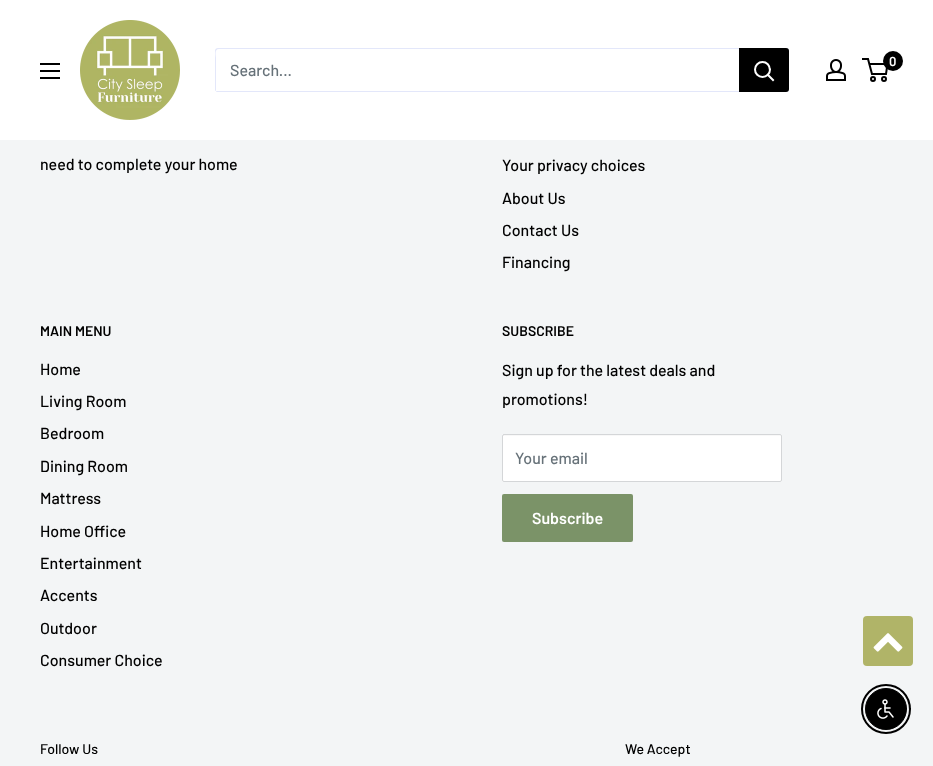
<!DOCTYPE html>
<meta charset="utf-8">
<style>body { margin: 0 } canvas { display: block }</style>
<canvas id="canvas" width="933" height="766"></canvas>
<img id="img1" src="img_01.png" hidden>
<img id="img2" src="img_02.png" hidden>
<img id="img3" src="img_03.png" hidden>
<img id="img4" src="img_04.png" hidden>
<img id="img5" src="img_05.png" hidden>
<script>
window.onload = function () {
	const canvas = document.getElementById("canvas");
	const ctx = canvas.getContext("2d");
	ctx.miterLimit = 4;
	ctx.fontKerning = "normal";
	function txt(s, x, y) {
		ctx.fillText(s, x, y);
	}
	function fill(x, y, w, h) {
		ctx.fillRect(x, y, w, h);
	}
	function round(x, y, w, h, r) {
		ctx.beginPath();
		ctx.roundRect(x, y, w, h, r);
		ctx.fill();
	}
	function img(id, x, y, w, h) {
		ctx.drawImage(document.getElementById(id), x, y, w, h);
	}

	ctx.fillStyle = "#F3F5F6";
	fill(0, 0, 933, 766);
	ctx.fillStyle = "#FFFFFF";
	fill(0, 0, 933, 140);
	img("img1", 80, 20, 100, 100);
	img("img2", 826, 59, 20, 22);
	ctx.beginPath();
	ctx.arc(873, 79, 2, 0, Math.PI * 2);
	ctx.strokeStyle = "#000000";
	ctx.lineWidth = 2;
	ctx.stroke();
	ctx.beginPath();
	ctx.arc(884, 79, 2, 0, Math.PI * 2);
	ctx.stroke();
	ctx.beginPath();
	ctx.moveTo(869.5, 64);
	ctx.lineTo(887.5, 64);
	ctx.lineTo(886, 74);
	ctx.lineTo(872, 74);
	ctx.lineTo(868, 59);
	ctx.lineTo(862, 59);
	ctx.stroke();
	ctx.fillStyle = "#000000";
	ctx.beginPath();
	ctx.arc(893, 61, 10, 0, Math.PI * 2);
	ctx.fill();
	img("img3", 40, 63, 20, 16);
	ctx.fillStyle = "#E3E7FA";
	ctx.beginPath();
	ctx.moveTo(216, 91);
	ctx.bezierCurveTo(216, 92, 217, 92, 218, 92);
	ctx.lineTo(786, 92);
	ctx.bezierCurveTo(788, 92, 789, 91, 789, 89);
	ctx.lineTo(789, 51);
	ctx.bezierCurveTo(789, 50, 789, 49, 788, 49);
	ctx.lineTo(788, 82);
	ctx.bezierCurveTo(788, 84, 790, 91, 785, 91);
	ctx.closePath();
	ctx.fill();
	ctx.beginPath();
	ctx.moveTo(219, 49);
	ctx.lineTo(788, 49);
	ctx.bezierCurveTo(788, 48, 787, 48, 786, 48);
	ctx.lineTo(218, 48);
	ctx.bezierCurveTo(216, 48, 215, 49, 215, 51);
	ctx.lineTo(215, 89);
	ctx.bezierCurveTo(215, 90, 215, 91, 216, 91);
	ctx.lineTo(216, 58);
	ctx.bezierCurveTo(216, 56, 214, 49, 219, 49);
	ctx.closePath();
	ctx.fill();
	ctx.fillStyle = "#000000";
	ctx.beginPath();
	ctx.roundRect(739, 48, 50, 44, [0, 3, 3, 0]);
	ctx.fill();
	ctx.beginPath();
	ctx.moveTo(773, 80);
	ctx.lineTo(768, 75);
	ctx.strokeStyle = "#FFFFFF";
	ctx.lineCap = "square";
	ctx.stroke();
	ctx.beginPath();
	ctx.arc(762.5, 69.5, 7.5, 0, Math.PI * 2);
	ctx.stroke();
	ctx.fillStyle = "#FFFFFF";
	round(502, 434, 280, 48, 2);
	ctx.fillStyle = "#F8F8F8";
	ctx.beginPath();
	ctx.moveTo(504, 436);
	ctx.lineTo(780, 436);
	ctx.bezierCurveTo(781, 436, 781, 436, 781, 437);
	ctx.bezierCurveTo(781, 436, 781, 435, 780, 435);
	ctx.lineTo(504, 435);
	ctx.lineTo(503, 435);
	ctx.lineTo(503, 437);
	ctx.bezierCurveTo(503, 436, 503, 436, 504, 436);
	ctx.closePath();
	ctx.fill();
	ctx.beginPath();
	ctx.roundRect(502.5, 434.5, 279, 47, 1.5);
	ctx.strokeStyle = "#D4D6D8";
	ctx.lineWidth = 1;
	ctx.stroke();
	ctx.fillStyle = "#7B9368";
	round(502, 494, 131, 48, 2);
	ctx.fillStyle = "#B0B468";
	round(863, 616, 50, 50, 4);
	img("img4", 873, 633, 30, 19);
	ctx.beginPath();
	ctx.arc(886, 709, 24, 0, Math.PI * 2);
	ctx.strokeStyle = "#000000";
	ctx.lineWidth = 2;
	ctx.stroke();
	ctx.fillStyle = "#000000";
	ctx.beginPath();
	ctx.arc(886, 709, 20.5, 0, Math.PI * 2);
	ctx.fill();
	ctx.lineWidth = 1;
	ctx.stroke();
	img("img5", 877, 699, 17, 20);
	ctx.font = "600 13px Barlow";
	ctx.fillStyle = "#FFFFFF";
	txt("0", 889, 66);
	ctx.font = "500 16px Barlow";
	ctx.fillStyle = "#677279";
	txt("Search...", 230, 76);
	ctx.fillStyle = "#000000";
	txt("need to complete your home", 40, 170);
	txt("Your privacy choices", 502, 171);
	txt("About Us", 502, 204);
	txt("Contact Us", 502, 236);
	txt("Financing", 502, 268);
	ctx.font = "600 14px Barlow";
	txt("MAIN MENU", 40, 336);
	ctx.font = "500 16px Barlow";
	txt("Home", 40, 375);
	txt("Living Room", 40, 407);
	txt("Bedroom", 40, 439);
	txt("Dining Room", 40, 472);
	txt("Mattress", 40, 504);
	txt("Home Office", 40, 537);
	txt("Entertainment", 40, 569);
	txt("Accents", 40, 601);
	txt("Outdoor", 40, 634);
	txt("Consumer Choice", 40, 666);
	ctx.font = "600 14px Barlow";
	txt("SUBSCRIBE", 502, 336);
	ctx.font = "500 16px Barlow";
	txt("Sign up for the latest deals and", 502, 376);
	txt("promotions!", 502, 405);
	ctx.fillStyle = "#677279";
	txt("Your email", 515, 464);
	ctx.font = "600 16px Barlow";
	ctx.fillStyle = "#FFFFFF";
	txt("Subscribe", 532, 524);
	ctx.font = "500 14px Barlow";
	ctx.fillStyle = "#000000";
	txt("Follow Us", 40, 754);
	txt("We Accept", 625, 754);
};
</script>
